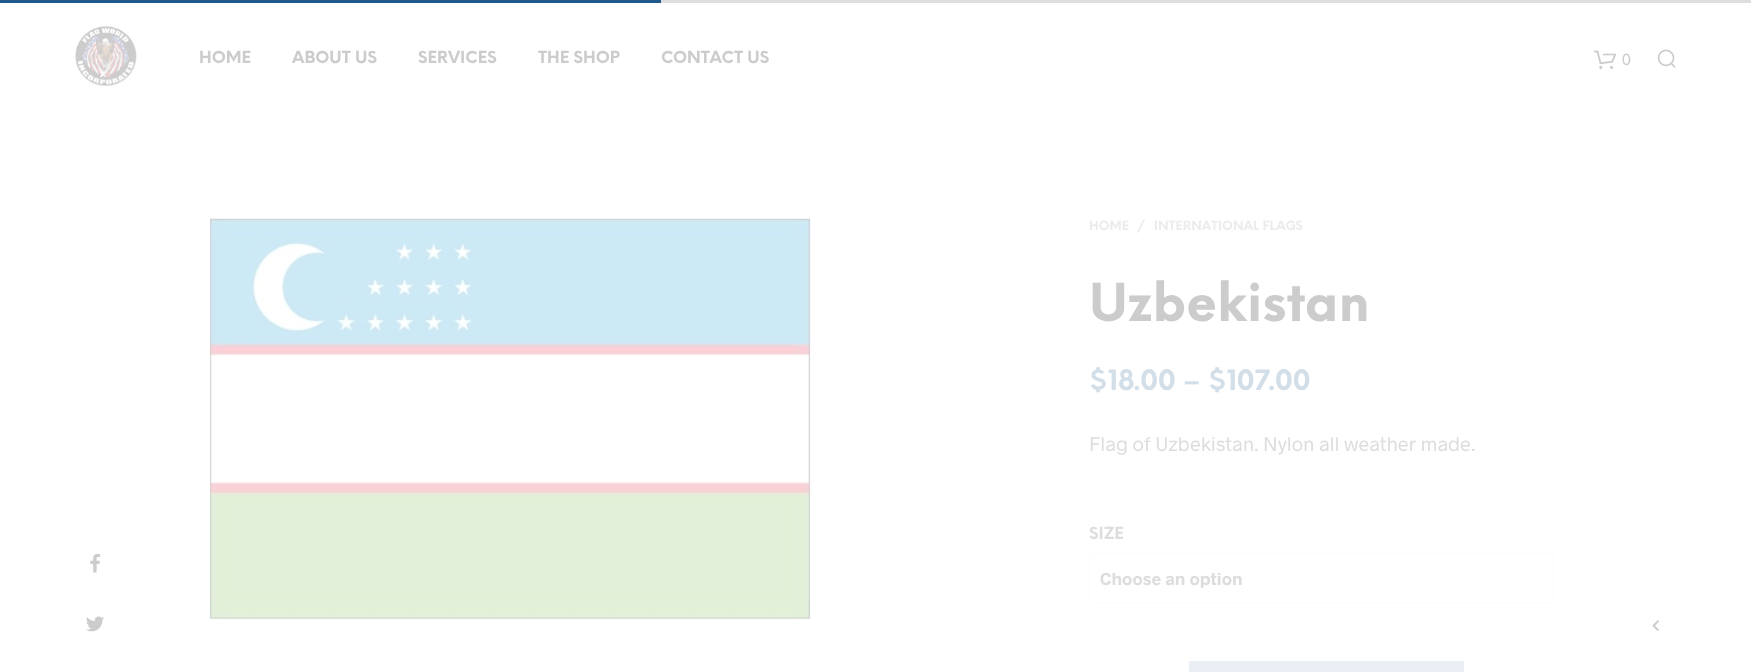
<!DOCTYPE html>
<meta charset="utf-8">
<style>body { margin: 0 } canvas { display: block }</style>
<canvas id="canvas" width="1751" height="672"></canvas>
<img id="img1" src="img_01.png" hidden>
<img id="img2" src="img_02.png" hidden>
<img id="img3" src="img_03.png" hidden>
<img id="img4" src="img_04.png" hidden>
<img id="img5" src="img_05.png" hidden>
<img id="img6" src="img_06.png" hidden>
<img id="img7" src="img_07.png" hidden>
<script>
window.onload = function () {
	const canvas = document.getElementById("canvas");
	const ctx = canvas.getContext("2d");
	ctx.miterLimit = 4;
	ctx.fontKerning = "normal";
	function txt(s, x, y) {
		ctx.fillText(s, x, y);
	}
	function fill(x, y, w, h) {
		ctx.fillRect(x, y, w, h);
	}
	function img(id, x, y, w, h) {
		ctx.drawImage(document.getElementById(id), x, y, w, h);
	}

	ctx.fillStyle = "#FFFFFF";
	fill(0, 0, 1751, 672);
	ctx.fillStyle = "#205A8D";
	fill(0, 0, 661, 3);
	ctx.fillStyle = "#DEDEDE";
	fill(661, 0, 1090, 3);
	img("img1", 75, 26, 62, 60);
	img("img2", 1593, 50, 23, 19);
	img("img3", 1657, 49, 19, 19);
	img("img4", 210, 218, 601, 401);
	img("img5", 90, 554, 10, 19);
	img("img6", 86, 616, 18, 16);
	ctx.strokeStyle = "#FCFCFC";
	ctx.strokeRect(1089.5, 553.5, 464, 49);
	ctx.fillStyle = "#E9EFF4";
	fill(1189, 661, 275, 11);
	img("img7", 1652, 620, 7, 11);
	ctx.font = "bold 16.25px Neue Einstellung";
	ctx.fillStyle = "#CCCCCC";
	txt("HOME", 199, 63);
	txt("ABOUT US", 292, 63);
	txt("SERVICES", 418, 63);
	txt("THE SHOP", 538, 63);
	txt("CONTACT US", 661, 63);
	ctx.font = "16.25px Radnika";
	txt("0", 1622, 65);
	ctx.font = "bold 12.5px Neue Einstellung";
	ctx.fillStyle = "#ECECEC";
	txt("HOME", 1089, 230);
	txt("/", 1137, 230);
	txt("INTERNATIONAL FLAGS", 1154, 230);
	ctx.font = "bold 51px Neue Einstellung";
	ctx.fillStyle = "#CCCCCC";
	txt("Uzbekistan", 1089, 321);
	ctx.font = "bold 27.5px Neue Einstellung";
	ctx.fillStyle = "#D2DEE8";
	txt("$18.00 – $107.00", 1089, 390);
	ctx.font = "20px Radnika";
	ctx.fillStyle = "#DDDDDD";
	txt("Flag of Uzbekistan. Nylon all weather made.", 1089, 451);
	ctx.font = "bold 16.25px Neue Einstellung";
	txt("SIZE", 1089, 539);
	ctx.font = "bold 17.5px Radnika";
	txt("Choose an option", 1100, 585);
};
</script>
